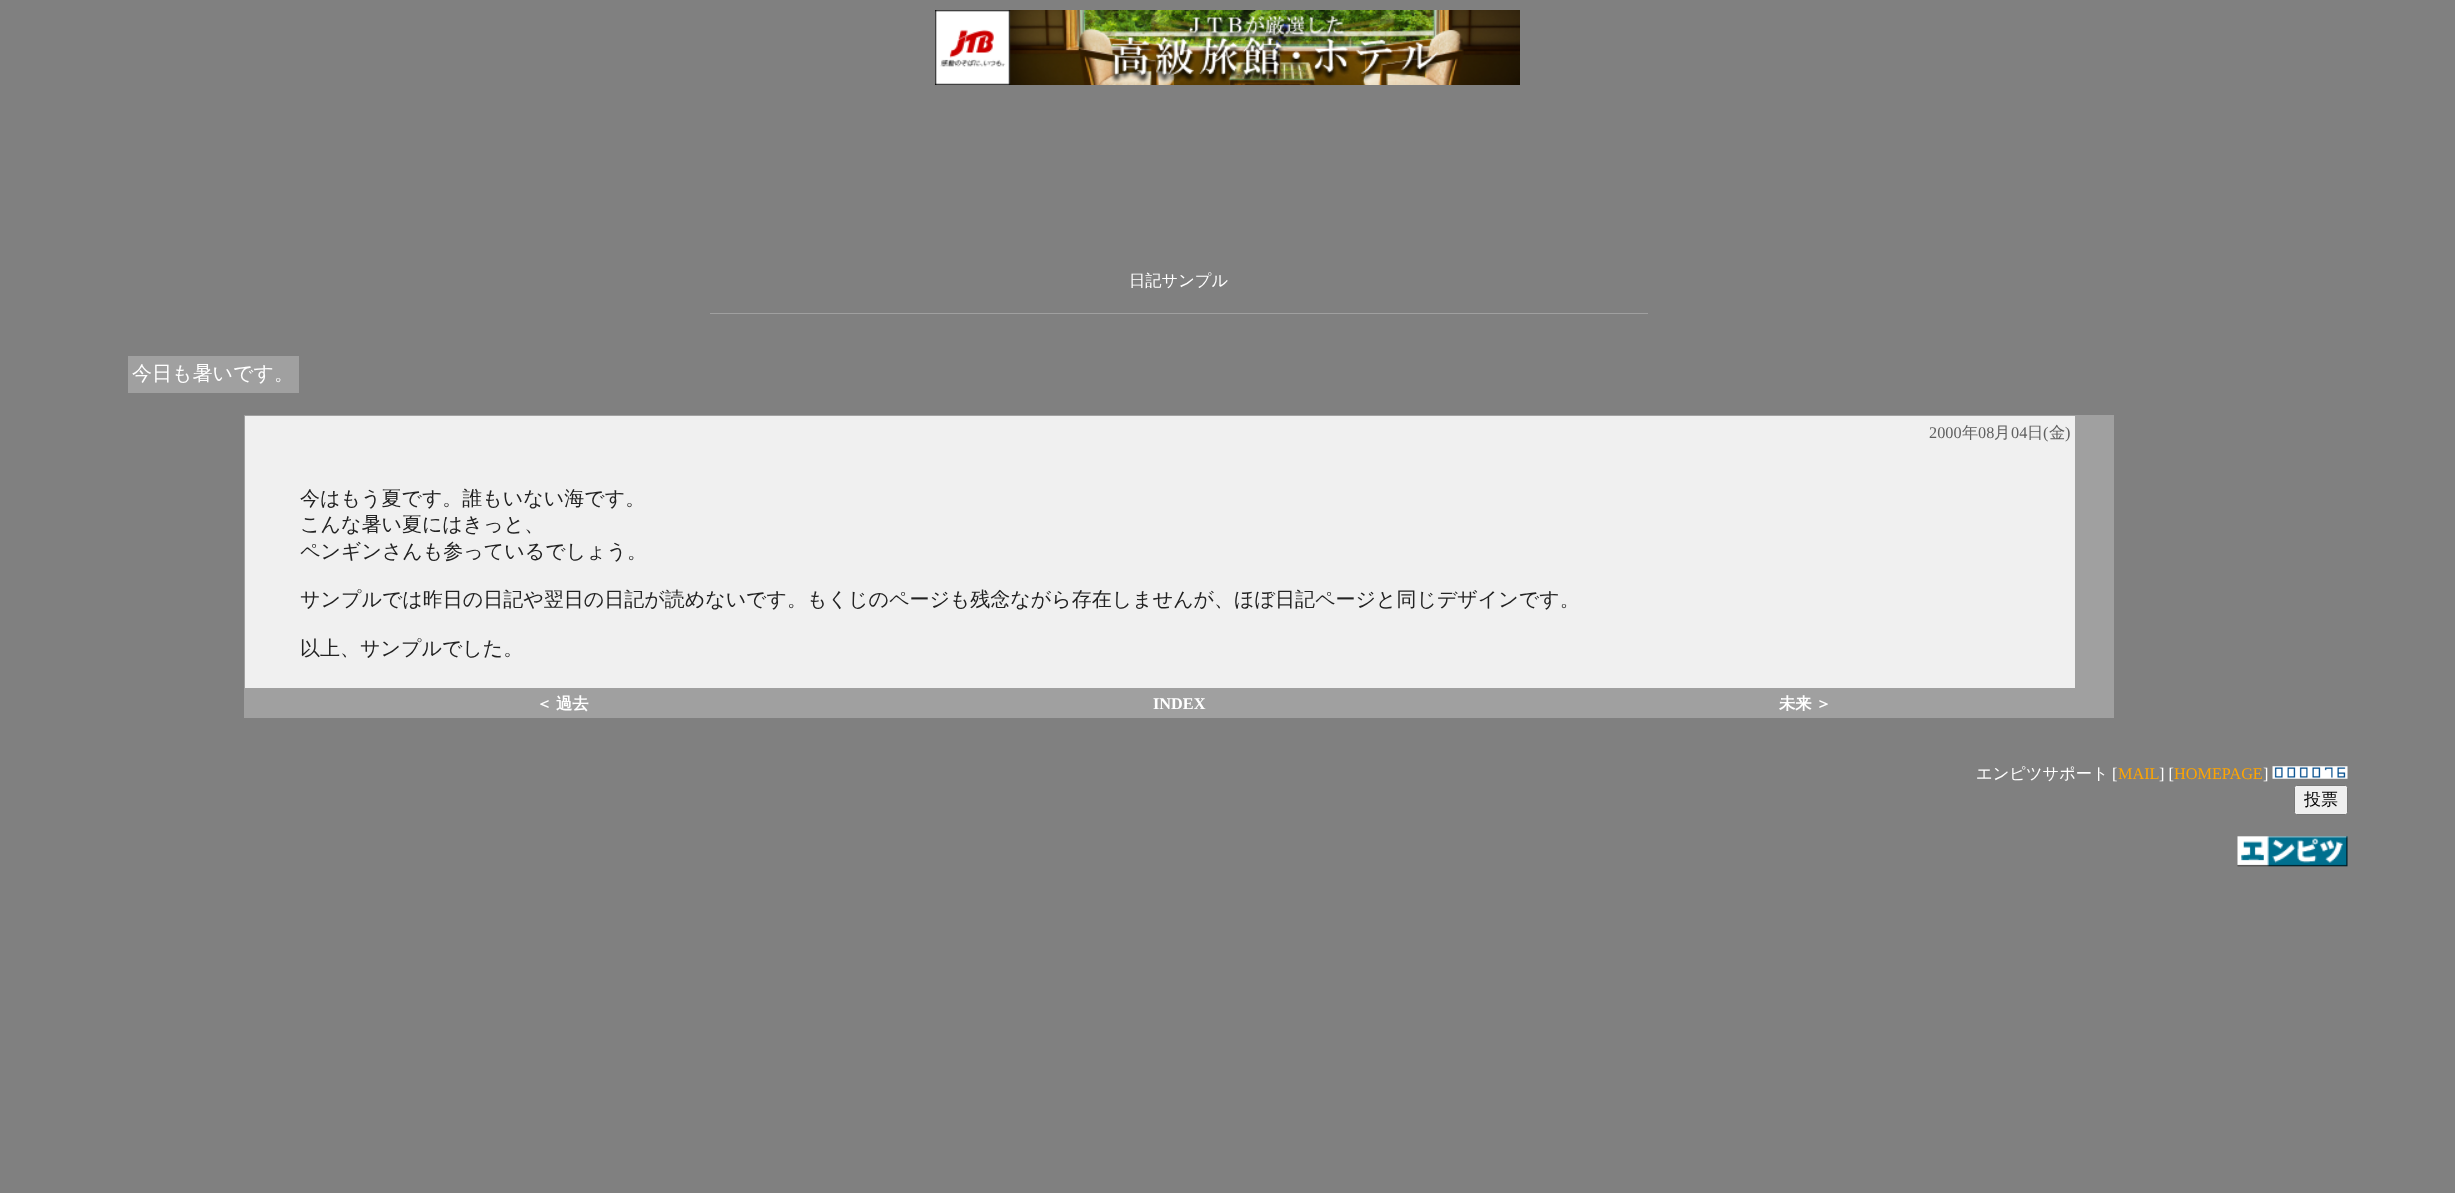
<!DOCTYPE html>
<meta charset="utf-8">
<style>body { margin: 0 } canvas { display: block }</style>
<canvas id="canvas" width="2455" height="1193"></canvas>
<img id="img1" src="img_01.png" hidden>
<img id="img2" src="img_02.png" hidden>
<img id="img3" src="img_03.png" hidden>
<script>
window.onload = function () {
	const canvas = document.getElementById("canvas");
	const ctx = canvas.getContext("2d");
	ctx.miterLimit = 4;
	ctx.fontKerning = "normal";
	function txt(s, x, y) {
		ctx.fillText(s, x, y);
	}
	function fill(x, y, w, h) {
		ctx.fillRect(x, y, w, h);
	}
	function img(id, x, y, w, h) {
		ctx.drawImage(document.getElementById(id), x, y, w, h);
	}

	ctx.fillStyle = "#808080";
	fill(0, 0, 2455, 1193);
	img("img1", 935, 10, 585, 75);
	ctx.fillStyle = "#A0A0A0";
	fill(710, 313, 938, 1);
	fill(128, 356, 171, 37);
	fill(244, 415, 1870, 303);
	ctx.fillStyle = "#F0F0F0";
	fill(245, 416, 1830, 272);
	img("img2", 2272, 766, 76, 13);
	ctx.fillStyle = "#EFEFEF";
	ctx.beginPath();
	ctx.roundRect(2294.5, 785.5, 53, 29, 2);
	ctx.fill();
	ctx.strokeStyle = "#767676";
	ctx.stroke();
	img("img3", 2237, 836, 111, 31);
	ctx.font = "500 16.25px WenQuanYi Zen Hei";
	ctx.fillStyle = "#FFFFFF";
	txt("日記サンプル", 1129, 286);
	ctx.font = "500 20px WenQuanYi Zen Hei";
	txt("今日も暑いです。", 132, 380);
	ctx.font = "16.25px Liberation Serif";
	ctx.fillStyle = "#606060";
	txt("2000", 1929, 438);
	ctx.font = "500 16.25px WenQuanYi Zen Hei";
	txt("年", 1962, 438);
	ctx.font = "16.25px Liberation Serif";
	txt("08", 1978, 438);
	ctx.font = "500 16.25px WenQuanYi Zen Hei";
	txt("月", 1994, 438);
	ctx.font = "16.25px Liberation Serif";
	txt("04", 2011, 438);
	ctx.font = "500 16.25px WenQuanYi Zen Hei";
	txt("日", 2027, 438);
	ctx.font = "16.25px Liberation Serif";
	txt("(", 2043, 438);
	ctx.font = "500 16.25px WenQuanYi Zen Hei";
	txt("金", 2049, 438);
	ctx.font = "16.25px Liberation Serif";
	txt(")", 2065, 438);
	ctx.font = "500 20px WenQuanYi Zen Hei";
	ctx.fillStyle = "#222222";
	txt("今はもう夏です。誰もいない海です。", 300, 505);
	txt("こんな暑い夏にはきっと、", 300, 531);
	txt("ペンギンさんも参っているでしょう。", 300, 558);
	txt("サンプルでは昨日の日記や翌日の日記が読めないです。もくじのページも残念ながら存在しませんが、ほぼ日記ページと同じデザインです。", 300, 606);
	txt("以上、サンプルでした。", 300, 655);
	ctx.wordSpacing = "-1px";
	ctx.font = "bold 16.25px WenQuanYi Zen Hei";
	ctx.fillStyle = "#FFFFFF";
	txt("＜ 過去", 536, 709);
	ctx.wordSpacing = "0px";
	ctx.font = "bold 16.25px Liberation Serif";
	txt("INDEX", 1153, 709);
	ctx.wordSpacing = "-1px";
	ctx.font = "bold 16.25px WenQuanYi Zen Hei";
	txt("未来 ＞", 1779, 709);
	ctx.wordSpacing = "0px";
	ctx.font = "500 16.25px WenQuanYi Zen Hei";
	txt("エンピツサポート", 1976, 779);
	ctx.font = "16.25px Liberation Serif";
	txt("[", 2112, 779);
	ctx.fillStyle = "#FFA500";
	txt("MAIL", 2118, 779);
	ctx.fillStyle = "#FFFFFF";
	txt("] [", 2159, 779);
	ctx.fillStyle = "#FFA500";
	txt("HOMEPAGE", 2174, 779);
	ctx.fillStyle = "#FFFFFF";
	txt("]", 2263, 779);
	ctx.font = "500 17px WenQuanYi Zen Hei";
	ctx.fillStyle = "#000000";
	txt("投票", 2304, 805);
};
</script>
